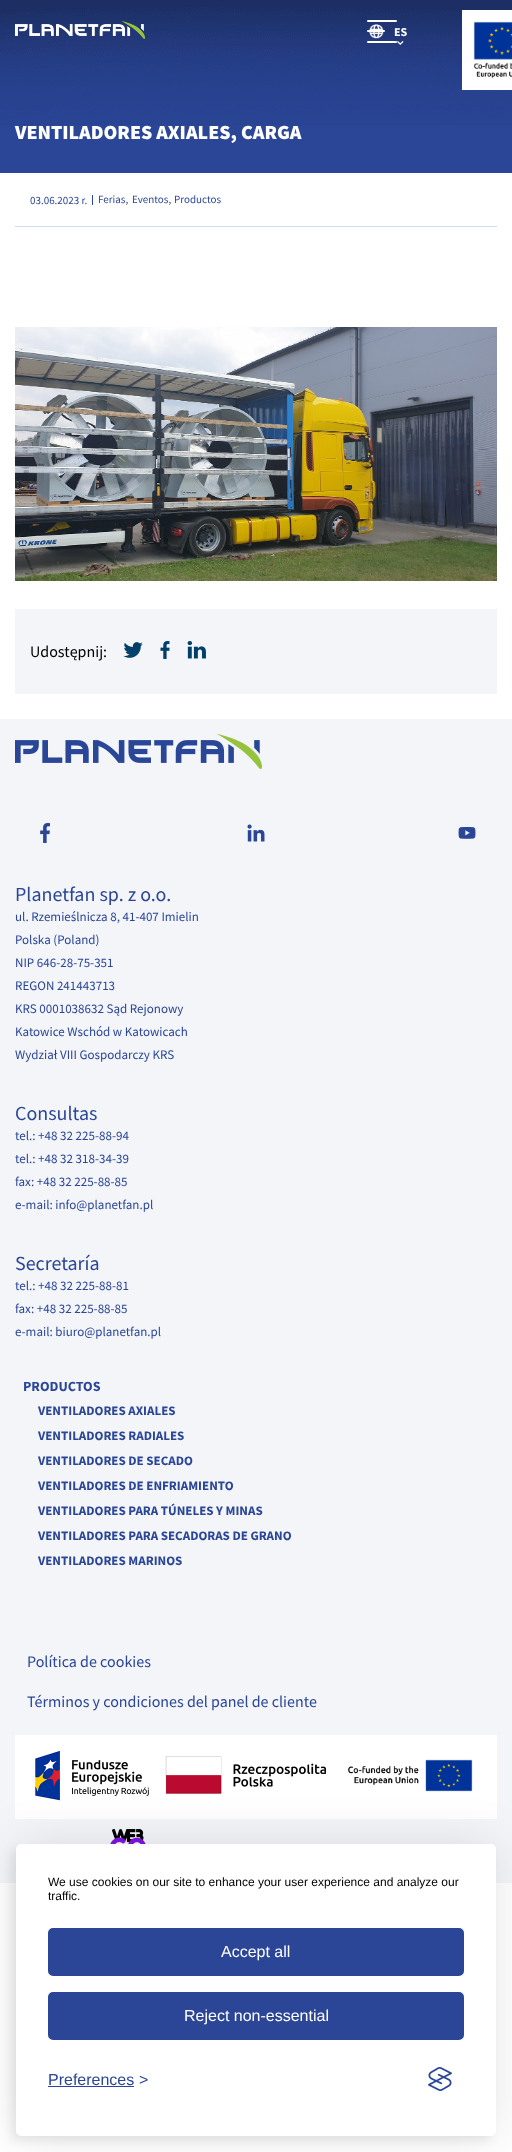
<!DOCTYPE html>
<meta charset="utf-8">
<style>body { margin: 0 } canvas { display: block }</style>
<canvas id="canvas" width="512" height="2152"></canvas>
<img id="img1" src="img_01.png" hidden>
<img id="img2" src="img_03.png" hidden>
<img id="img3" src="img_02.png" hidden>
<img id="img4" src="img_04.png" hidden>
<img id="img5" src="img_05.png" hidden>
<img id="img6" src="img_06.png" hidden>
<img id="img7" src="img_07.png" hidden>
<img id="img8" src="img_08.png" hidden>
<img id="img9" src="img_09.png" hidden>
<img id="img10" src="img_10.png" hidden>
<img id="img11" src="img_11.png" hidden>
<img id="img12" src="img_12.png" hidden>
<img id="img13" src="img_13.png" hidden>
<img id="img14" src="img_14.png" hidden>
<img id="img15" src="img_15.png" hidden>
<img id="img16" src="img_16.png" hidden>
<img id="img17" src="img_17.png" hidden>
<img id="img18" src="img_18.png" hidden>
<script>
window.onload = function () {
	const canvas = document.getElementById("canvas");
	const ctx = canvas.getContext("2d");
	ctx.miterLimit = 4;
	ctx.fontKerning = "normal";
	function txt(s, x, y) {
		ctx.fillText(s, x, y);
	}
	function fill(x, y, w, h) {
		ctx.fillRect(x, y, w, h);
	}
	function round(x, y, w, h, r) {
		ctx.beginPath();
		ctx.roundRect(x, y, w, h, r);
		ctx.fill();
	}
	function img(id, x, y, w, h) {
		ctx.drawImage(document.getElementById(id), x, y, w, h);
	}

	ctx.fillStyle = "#FFFFFF";
	fill(0, 0, 512, 2152);
	ctx.fillStyle = "#2B4697";
	fill(0, 0, 512, 173);
	img("img1", 0, 0, 512, 125);
	ctx.fillStyle = "#FFFFFF";
	round(367, 20, 30, 2, 1);
	img("img2", 369, 24, 15, 15);
	round(367, 30, 18, 2, 1);
	round(367, 41, 30, 2, 1);
	img("img3", 15, 21, 130, 18);
	img("img4", 397, 41, 7, 4);
	fill(462, 10, 50, 80);
	img("img5", 473, 21, 39, 58);
	ctx.fillStyle = "#D4DAEE";
	fill(15, 226, 482, 1);
	ctx.fillStyle = "#2B4697";
	fill(92, 195, 1, 10);
	img("img6", 15, 327, 482, 254);
	ctx.fillStyle = "#F3F5F9";
	fill(15, 609, 482, 85);
	img("img7", 123, 642, 20, 16);
	img("img8", 160, 641, 10, 18);
	img("img9", 187, 641, 19, 18);
	fill(0, 719, 512, 1164);
	img("img10", 15, 734, 247, 35);
	img("img11", 40, 823, 10, 20);
	img("img12", 247, 824, 18, 18);
	img("img13", 458, 827, 18, 12);
	ctx.fillStyle = "#FFFFFF";
	fill(15, 1735, 482, 84);
	img("img14", 35, 1750, 114, 51);
	img("img15", 165, 1756, 161, 38);
	img("img16", 347, 1759, 126, 33);
	img("img17", 110, 1829, 36, 15);
	ctx.fillStyle = "rgba(0, 0, 0, 0.1)";
	ctx.filter = "blur(25px)";
	ctx.beginPath();
	ctx.roundRect(16, 1844, 480, 292, 5);
	ctx.fill();
	ctx.filter = "none";
	ctx.fillStyle = "rgba(0, 0, 0, 0.07)";
	ctx.filter = "blur(5px)";
	ctx.beginPath();
	ctx.roundRect(11, 1849, 480, 292, 5);
	ctx.fill();
	ctx.filter = "none";
	ctx.fillStyle = "#FFFFFF";
	round(16, 1844, 480, 292, 5);
	ctx.fillStyle = "#2B4697";
	ctx.beginPath();
	ctx.roundRect(49, 1929, 414, 46, 4);
	ctx.fill();
	ctx.strokeStyle = "#2B4697";
	ctx.lineWidth = 2;
	ctx.stroke();
	ctx.beginPath();
	ctx.roundRect(49, 1993, 414, 46, 4);
	ctx.fill();
	ctx.stroke();
	fill(48, 2086, 86, 1);
	img("img18", 428, 2067, 24, 24);
	ctx.font = "bold 12px Source Sans Pro";
	ctx.fillStyle = "#FFFFFF";
	txt("ES", 394, 36);
	ctx.font = "900 20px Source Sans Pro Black";
	txt("VENTILADORES AXIALES, CARGA", 15, 139);
	ctx.font = "11px Source Sans Pro";
	ctx.fillStyle = "#2B4697";
	txt("03.06.2023 r.", 30, 204);
	txt("Ferias,", 98, 203);
	txt("Eventos,", 132, 203);
	txt("Productos", 174, 203);
	ctx.font = "16px Source Sans Pro";
	ctx.fillStyle = "#000000";
	txt("Udostępnij:", 30, 657);
	ctx.font = "20px Source Sans Pro";
	ctx.fillStyle = "#2B4697";
	txt("Planetfan sp. z o.o.", 15, 901);
	ctx.font = "13px Source Sans Pro";
	txt("ul. Rzemieślnicza 8, 41-407 Imielin", 15, 921);
	txt("Polska (Poland)", 15, 944);
	txt("NIP 646-28-75-351", 15, 967);
	txt("REGON 241443713", 15, 990);
	txt("KRS 0001038632 Sąd Rejonowy", 15, 1013);
	txt("Katowice Wschód w Katowicach", 15, 1036);
	txt("Wydział VIII Gospodarczy KRS", 15, 1059);
	ctx.font = "20px Source Sans Pro";
	txt("Consultas", 15, 1120);
	ctx.font = "13px Source Sans Pro";
	txt("tel.: +48 32 225-88-94", 15, 1140);
	txt("tel.: +48 32 318-34-39", 15, 1163);
	txt("fax: +48 32 225-88-85", 15, 1186);
	txt("e-mail: info@planetfan.pl", 15, 1209);
	ctx.font = "20px Source Sans Pro";
	txt("Secretaría", 15, 1270);
	ctx.font = "13px Source Sans Pro";
	txt("tel.: +48 32 225-88-81", 15, 1290);
	txt("fax: +48 32 225-88-85", 15, 1313);
	txt("e-mail: biuro@planetfan.pl", 15, 1336);
	ctx.font = "bold 14px Source Sans Pro";
	txt("PRODUCTOS", 23, 1391);
	ctx.font = "bold 13px Source Sans Pro";
	txt("VENTILADORES AXIALES", 38, 1415);
	txt("VENTILADORES RADIALES", 38, 1440);
	txt("VENTILADORES DE SECADO", 38, 1465);
	txt("VENTILADORES DE ENFRIAMIENTO", 38, 1490);
	txt("VENTILADORES PARA TÚNELES Y MINAS", 38, 1515);
	txt("VENTILADORES PARA SECADORAS DE GRANO", 38, 1540);
	txt("VENTILADORES MARINOS", 38, 1565);
	ctx.font = "16px Source Sans Pro";
	txt("Política de cookies", 27, 1667);
	txt("Términos y condiciones del panel de cliente", 27, 1707);
	ctx.font = "12px Liberation Sans";
	ctx.fillStyle = "#000000";
	txt("We use cookies on our site to enhance your user experience and analyze our", 48, 1886);
	txt("traffic.", 48, 1900);
	ctx.font = "16px Liberation Sans";
	ctx.fillStyle = "#FFFFFF";
	txt("Accept all", 221, 1957);
	txt("Reject non-essential", 184, 2021);
	ctx.fillStyle = "#2B4697";
	txt("Preferences", 48, 2085);
	txt(">", 139, 2085);
};
</script>
